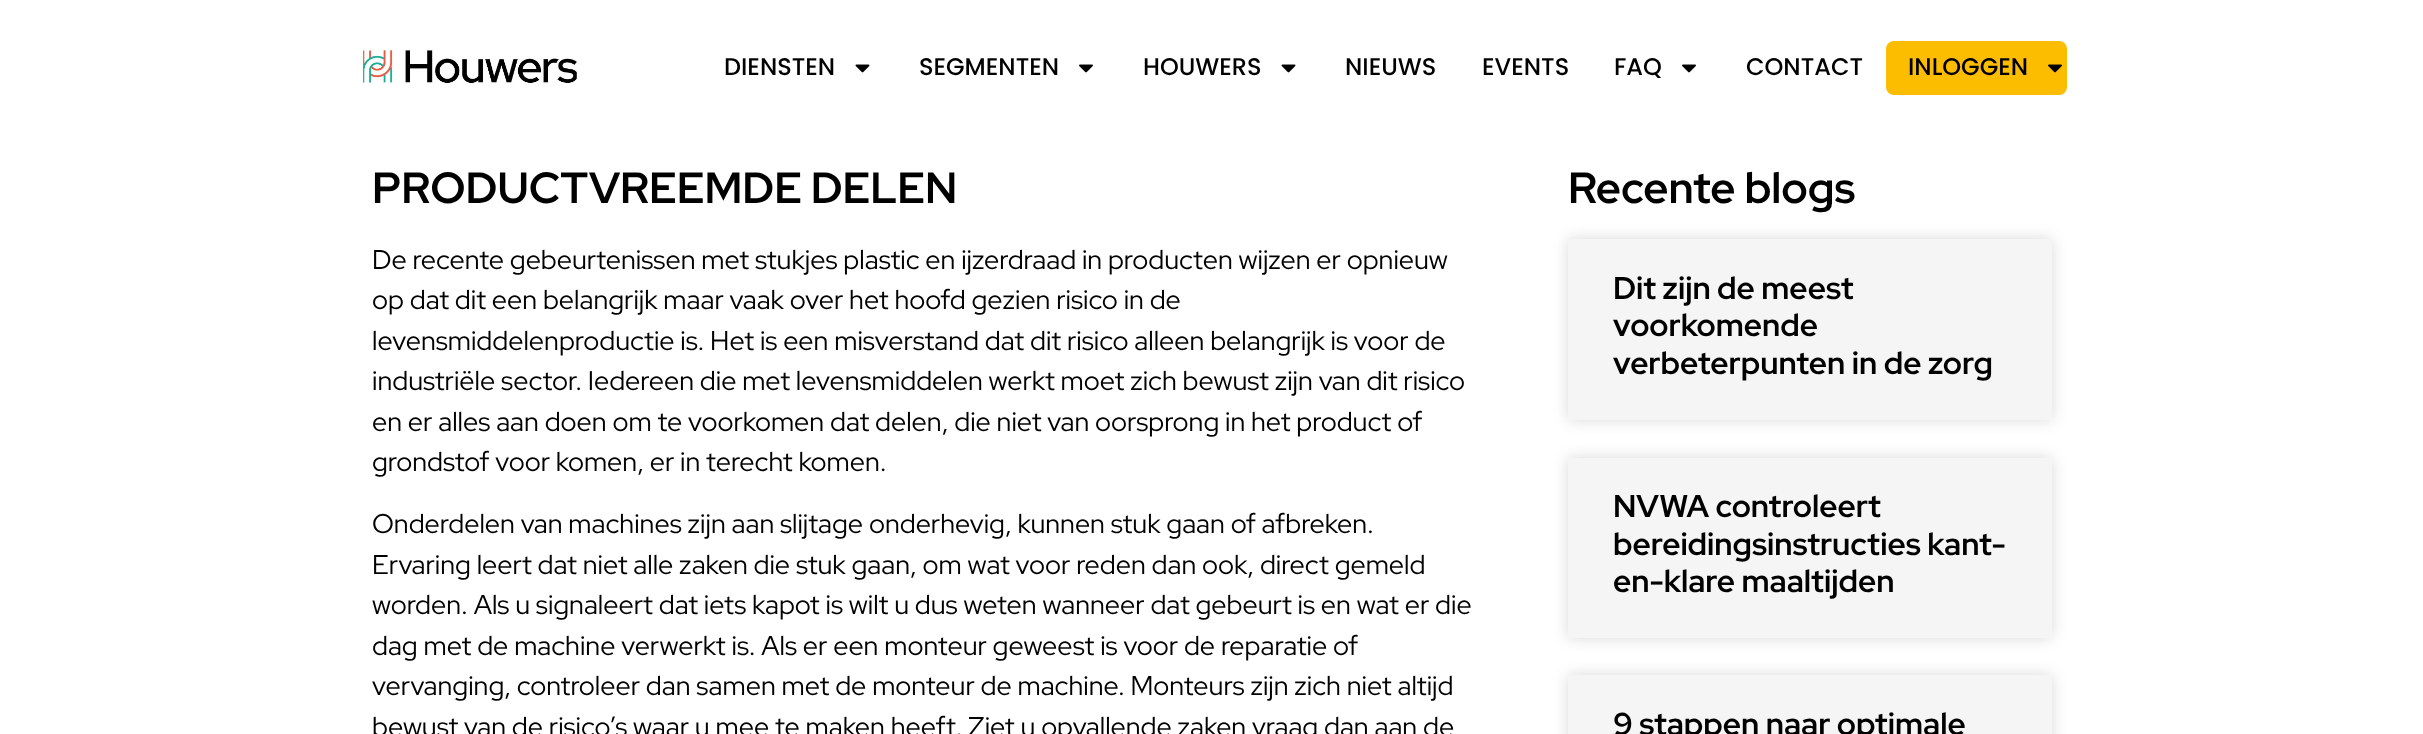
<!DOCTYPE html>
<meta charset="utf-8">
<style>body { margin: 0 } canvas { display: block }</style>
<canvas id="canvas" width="2423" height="734"></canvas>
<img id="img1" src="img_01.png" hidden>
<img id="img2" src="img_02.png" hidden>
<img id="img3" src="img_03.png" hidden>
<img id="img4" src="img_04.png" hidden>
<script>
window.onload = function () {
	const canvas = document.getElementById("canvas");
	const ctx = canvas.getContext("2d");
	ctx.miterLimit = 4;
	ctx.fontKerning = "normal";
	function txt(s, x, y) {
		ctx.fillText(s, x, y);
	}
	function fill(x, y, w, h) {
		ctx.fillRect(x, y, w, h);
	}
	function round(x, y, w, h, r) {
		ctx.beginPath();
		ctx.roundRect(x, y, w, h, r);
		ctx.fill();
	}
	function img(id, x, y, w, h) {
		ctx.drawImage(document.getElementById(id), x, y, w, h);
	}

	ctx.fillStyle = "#FFFFFF";
	fill(0, 0, 2423, 734);
	img("img1", 361, 49, 217, 37);
	img("img2", 855, 64, 15, 9);
	img("img3", 1079, 64, 14, 9);
	img("img2", 1281, 64, 15, 9);
	img("img3", 1682, 64, 14, 9);
	ctx.fillStyle = "#FCBC00";
	round(1886, 41, 181, 54, 8);
	img("img4", 2048, 64, 14, 9);
	ctx.fillStyle = "rgba(0, 0, 0, 0.15)";
	ctx.filter = "blur(7.5px)";
	ctx.beginPath();
	ctx.rect(1568, 239, 484, 181);
	ctx.fill();
	ctx.filter = "none";
	ctx.fillStyle = "#F5F5F5";
	fill(1568, 239, 484, 181);
	ctx.fillStyle = "rgba(0, 0, 0, 0.15)";
	ctx.filter = "blur(7.5px)";
	ctx.beginPath();
	ctx.rect(1568, 458, 484, 180);
	ctx.fill();
	ctx.filter = "none";
	ctx.fillStyle = "#F5F5F5";
	fill(1568, 458, 484, 180);
	ctx.fillStyle = "rgba(0, 0, 0, 0.15)";
	ctx.filter = "blur(7.5px)";
	ctx.beginPath();
	ctx.rect(1568, 675, 484, 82);
	ctx.fill();
	ctx.filter = "none";
	ctx.fillStyle = "#F5F5F5";
	fill(1568, 675, 484, 59);
	ctx.font = "500 24px Poppins";
	ctx.fillStyle = "#000000";
	txt("DIENSTEN", 724, 75);
	txt("SEGMENTEN", 919, 75);
	txt("HOUWERS", 1143, 75);
	txt("NIEUWS", 1345, 75);
	txt("EVENTS", 1482, 75);
	txt("FAQ", 1614, 75);
	txt("CONTACT", 1746, 75);
	txt("INLOGGEN", 1908, 75);
	ctx.font = "bold 43.5px Red Hat Display";
	txt("PRODUCTVREEMDE DELEN", 372, 203);
	ctx.font = "27px Red Hat Display";
	txt("De recente gebeurtenissen met stukjes plastic en ijzerdraad in producten wijzen er opnieuw", 372, 269);
	txt("op dat dit een belangrijk maar vaak over het hoofd gezien risico in de", 372, 309);
	txt("levensmiddelenproductie is. Het is een misverstand dat dit risico alleen belangrijk is voor de", 372, 350);
	txt("industriële sector. Iedereen die met levensmiddelen werkt moet zich bewust zijn van dit risico", 372, 390);
	txt("en er alles aan doen om te voorkomen dat delen, die niet van oorsprong in het product of", 372, 431);
	txt("grondstof voor komen, er in terecht komen.", 372, 471);
	txt("Onderdelen van machines zijn aan slijtage onderhevig, kunnen stuk gaan of afbreken.", 372, 533);
	txt("Ervaring leert dat niet alle zaken die stuk gaan, om wat voor reden dan ook, direct gemeld", 372, 574);
	txt("worden. Als u signaleert dat iets kapot is wilt u dus weten wanneer dat gebeurt is en wat er die", 372, 614);
	txt("dag met de machine verwerkt is. Als er een monteur geweest is voor de reparatie of", 372, 655);
	txt("vervanging, controleer dan samen met de monteur de machine. Monteurs zijn zich niet altijd", 372, 695);
	txt("bewust van de risico’s waar u mee te maken heeft. Ziet u opvallende zaken vraag dan aan de", 372, 736);
	ctx.font = "bold 43.5px Red Hat Display";
	txt("Recente blogs", 1568, 203);
	ctx.font = "bold 31.5px Red Hat Display";
	txt("Dit zijn de meest", 1613, 299);
	txt("voorkomende", 1613, 336);
	txt("verbeterpunten in de zorg", 1613, 374);
	txt("NVWA controleert", 1613, 517);
	txt("bereidingsinstructies kant-", 1613, 555);
	txt("en-klare maaltijden", 1613, 592);
	txt("9 stappen naar optimale", 1613, 735);
};
</script>
